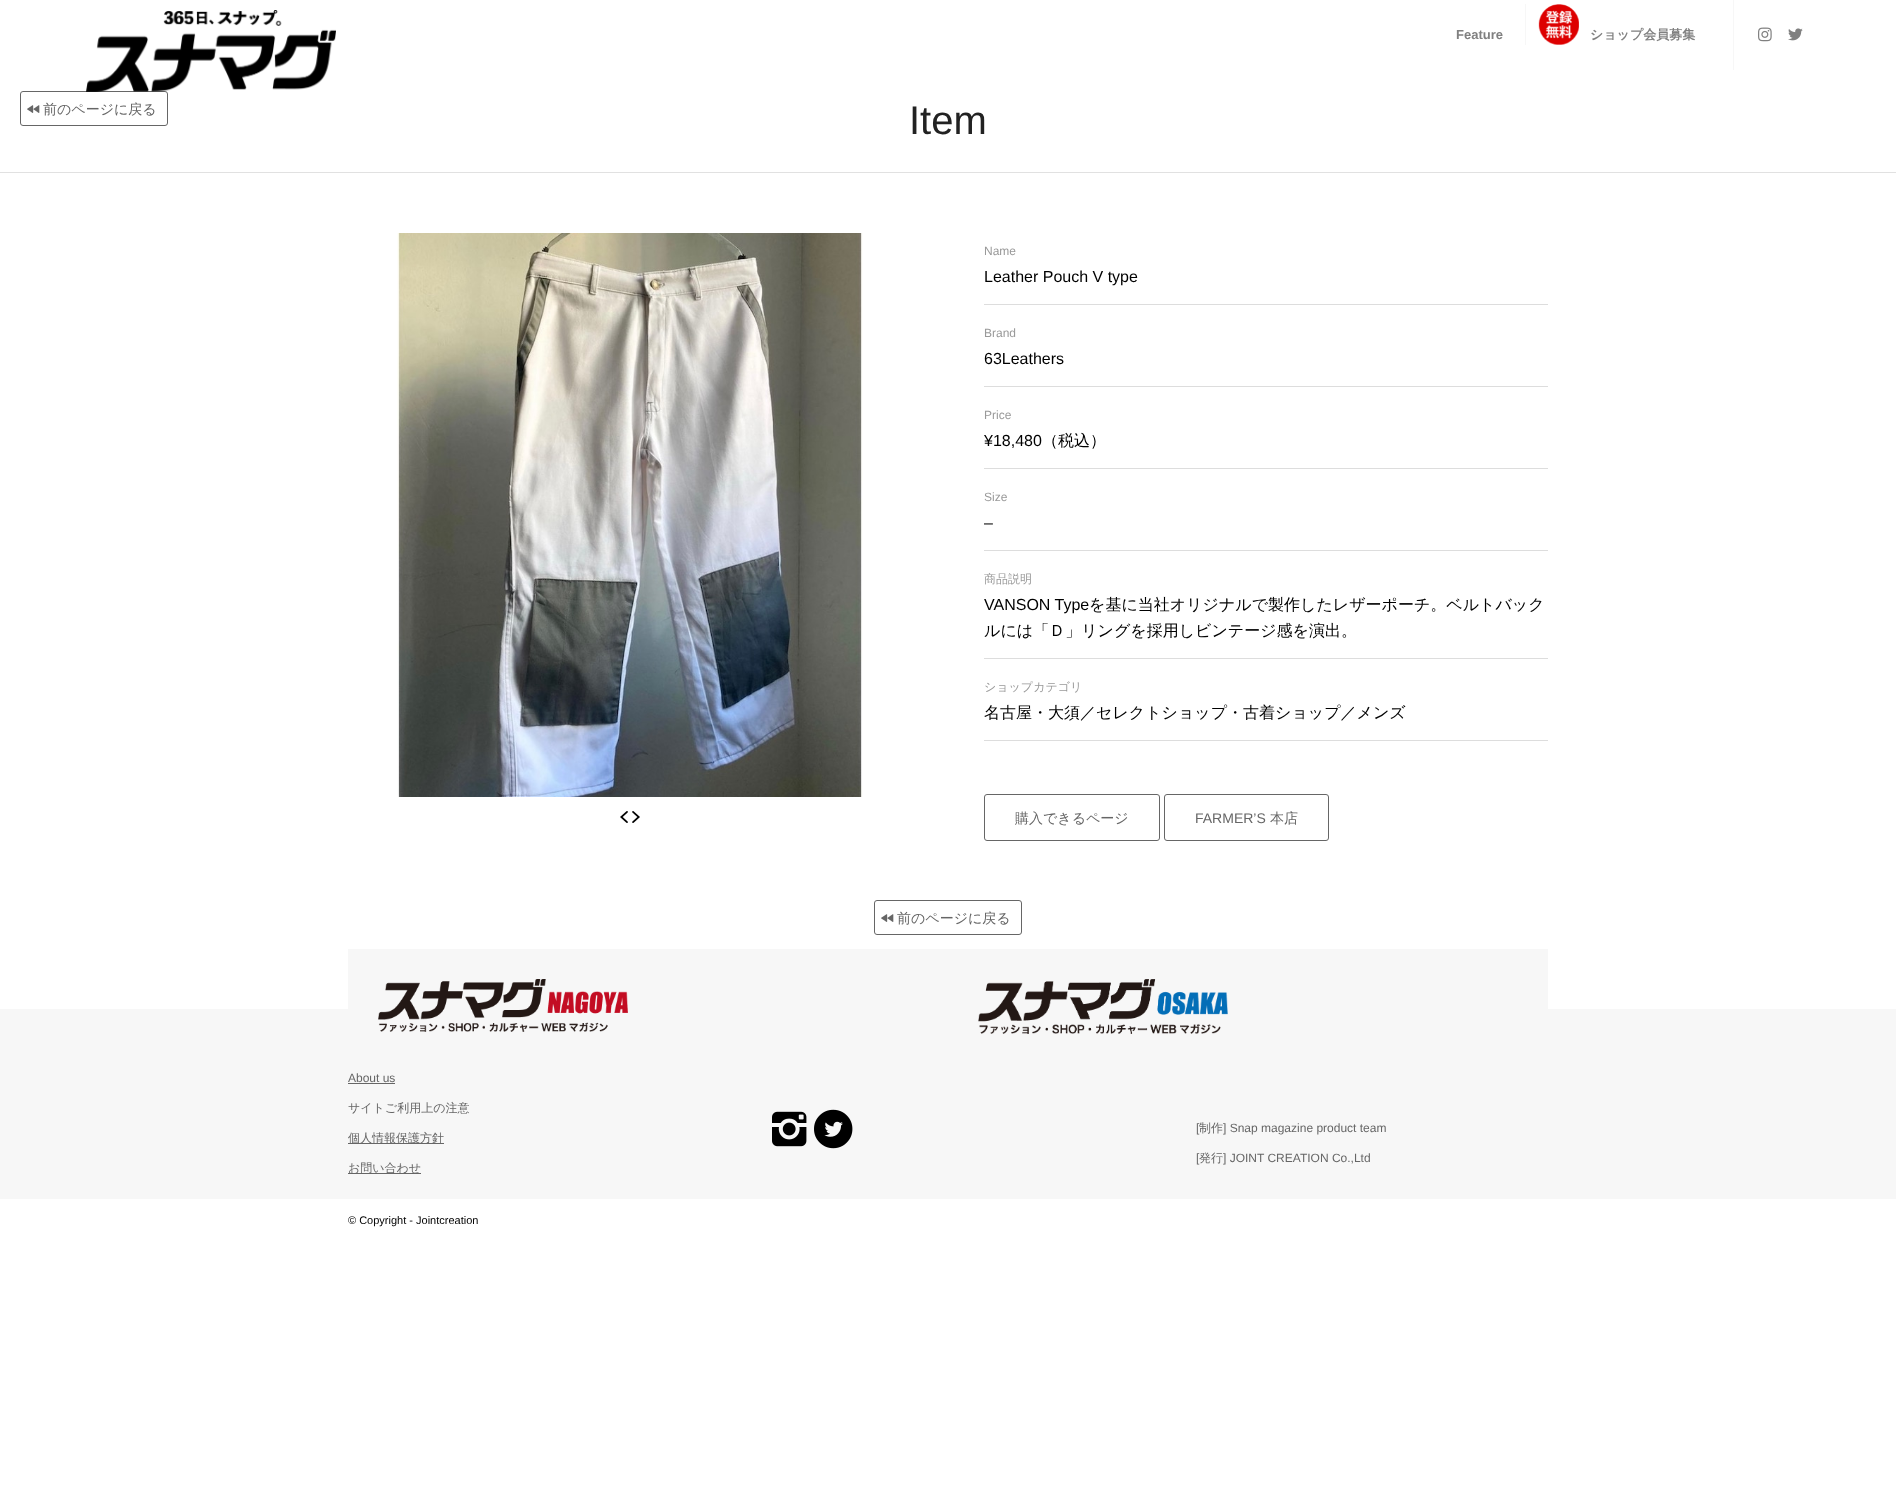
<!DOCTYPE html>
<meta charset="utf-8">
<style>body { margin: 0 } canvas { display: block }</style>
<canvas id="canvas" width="1896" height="1503"></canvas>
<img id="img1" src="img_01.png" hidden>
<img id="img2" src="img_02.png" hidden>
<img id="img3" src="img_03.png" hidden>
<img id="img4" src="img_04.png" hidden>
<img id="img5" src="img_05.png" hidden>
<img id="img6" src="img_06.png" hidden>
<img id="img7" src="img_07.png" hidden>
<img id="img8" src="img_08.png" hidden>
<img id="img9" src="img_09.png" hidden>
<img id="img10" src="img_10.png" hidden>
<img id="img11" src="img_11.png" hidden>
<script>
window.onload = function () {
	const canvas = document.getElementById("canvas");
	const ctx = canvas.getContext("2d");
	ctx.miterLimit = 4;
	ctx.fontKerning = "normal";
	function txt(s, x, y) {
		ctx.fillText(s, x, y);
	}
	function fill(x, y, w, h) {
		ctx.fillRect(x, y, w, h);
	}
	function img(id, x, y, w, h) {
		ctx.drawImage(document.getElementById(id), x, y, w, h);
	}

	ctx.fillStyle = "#FFFFFF";
	fill(0, 0, 1896, 1503);
	ctx.beginPath();
	ctx.roundRect(20.5, 91.5, 147, 34, 2.5);
	ctx.strokeStyle = "#666666";
	ctx.stroke();
	img("img1", 86, 10, 250, 82);
	ctx.fillStyle = "#F7F7F7";
	fill(1733, 0, 1, 70);
	fill(1525, 4, 1, 41);
	img("img2", 1538, 4, 41, 41);
	img("img3", 1758, 27, 14, 15);
	img("img4", 1788, 28, 15, 13);
	img("img5", 27, 105, 13, 8);
	ctx.fillStyle = "#E1E1E1";
	fill(0, 172, 1896, 1);
	img("img6", 397, 233, 466, 564);
	img("img7", 620, 811, 20, 12);
	ctx.fillStyle = "#DDDDDD";
	fill(984, 304, 564, 1);
	fill(984, 386, 564, 1);
	fill(984, 468, 564, 1);
	fill(984, 550, 564, 1);
	fill(984, 658, 564, 1);
	fill(984, 740, 564, 1);
	ctx.beginPath();
	ctx.roundRect(984.5, 794.5, 175, 46, 2.5);
	ctx.stroke();
	ctx.beginPath();
	ctx.roundRect(1164.5, 794.5, 164, 46, 2.5);
	ctx.stroke();
	ctx.beginPath();
	ctx.roundRect(874.5, 900.5, 147, 34, 2.5);
	ctx.stroke();
	img("img5", 881, 914, 13, 8);
	ctx.fillStyle = "#F7F7F7";
	fill(348, 949, 1200, 60);
	fill(0, 1009, 1896, 190);
	img("img8", 378, 979, 250, 53);
	img("img9", 978, 979, 250, 55);
	ctx.fillStyle = "#666666";
	fill(348, 1083, 47, 1);
	fill(348, 1143, 96, 1);
	fill(348, 1173, 73, 1);
	img("img10", 772, 1111, 35, 36);
	img("img11", 814, 1109, 39, 40);
	ctx.font = "bold 13px Liberation Sans";
	ctx.fillStyle = "#808080";
	txt("Feature", 1456, 39);
	ctx.font = "bold 13px WenQuanYi Zen Hei";
	txt("ショップ会員募集", 1590, 39);
	ctx.font = "500 14px WenQuanYi Zen Hei";
	ctx.fillStyle = "#666666";
	txt("前のページに戻る", 43, 114);
	ctx.font = "40px Liberation Sans";
	ctx.fillStyle = "#222222";
	txt("Item", 909, 134);
	ctx.font = "12px Liberation Sans";
	ctx.fillStyle = "#999999";
	txt("Name", 984, 255);
	ctx.font = "16px Liberation Sans";
	ctx.fillStyle = "#000000";
	txt("Leather Pouch V type", 984, 282);
	ctx.font = "12px Liberation Sans";
	ctx.fillStyle = "#999999";
	txt("Brand", 984, 337);
	ctx.font = "16px Liberation Sans";
	ctx.fillStyle = "#000000";
	txt("63Leathers", 984, 364);
	ctx.font = "12px Liberation Sans";
	ctx.fillStyle = "#999999";
	txt("Price", 984, 419);
	ctx.font = "16px Liberation Sans";
	ctx.fillStyle = "#000000";
	txt("¥18,480", 984, 446);
	ctx.font = "500 16px WenQuanYi Zen Hei";
	txt("（税込）", 1042, 446);
	ctx.font = "12px Liberation Sans";
	ctx.fillStyle = "#999999";
	txt("Size", 984, 501);
	ctx.font = "16px Liberation Sans";
	ctx.fillStyle = "#000000";
	txt("–", 984, 528);
	ctx.font = "500 12px WenQuanYi Zen Hei";
	ctx.fillStyle = "#999999";
	txt("商品説明", 984, 583);
	ctx.font = "16px Liberation Sans";
	ctx.fillStyle = "#000000";
	txt("VANSON Type", 984, 610);
	ctx.font = "500 16px WenQuanYi Zen Hei";
	txt("を基に当社オリジナルで製作したレザーポーチ。ベルトバック", 1089, 610);
	txt("ルには「Ｄ」リングを採用しビンテージ感を演出。", 984, 636);
	ctx.font = "500 12px WenQuanYi Zen Hei";
	ctx.fillStyle = "#999999";
	txt("ショップカテゴリ", 984, 691);
	ctx.font = "500 16px WenQuanYi Zen Hei";
	ctx.fillStyle = "#000000";
	txt("名古屋・大須／セレクトショップ・古着ショップ／メンズ", 984, 718);
	ctx.font = "500 14px WenQuanYi Zen Hei";
	ctx.fillStyle = "#666666";
	txt("購入できるページ", 1015, 823);
	ctx.font = "14px Liberation Sans";
	txt("FARMER’S", 1195, 823);
	ctx.font = "500 14px WenQuanYi Zen Hei";
	txt("本店", 1270, 823);
	txt("前のページに戻る", 897, 923);
	ctx.font = "12px Liberation Sans";
	txt("About us", 348, 1082);
	ctx.font = "500 12px WenQuanYi Zen Hei";
	txt("サイトご利用上の注意", 348, 1112);
	txt("個人情報保護方針", 348, 1142);
	txt("お問い合わせ", 348, 1172);
	ctx.font = "12px Liberation Sans";
	txt("[", 1196, 1132);
	ctx.font = "500 12px WenQuanYi Zen Hei";
	txt("制作", 1199, 1132);
	ctx.font = "12px Liberation Sans";
	txt("] Snap magazine product team", 1223, 1132);
	txt("[", 1196, 1162);
	ctx.font = "500 12px WenQuanYi Zen Hei";
	txt("発行", 1199, 1162);
	ctx.font = "12px Liberation Sans";
	txt("] JOINT CREATION Co.,Ltd", 1223, 1162);
	ctx.font = "11px Liberation Sans";
	ctx.fillStyle = "#000000";
	txt("© Copyright - Jointcreation", 348, 1224);
};
</script>
